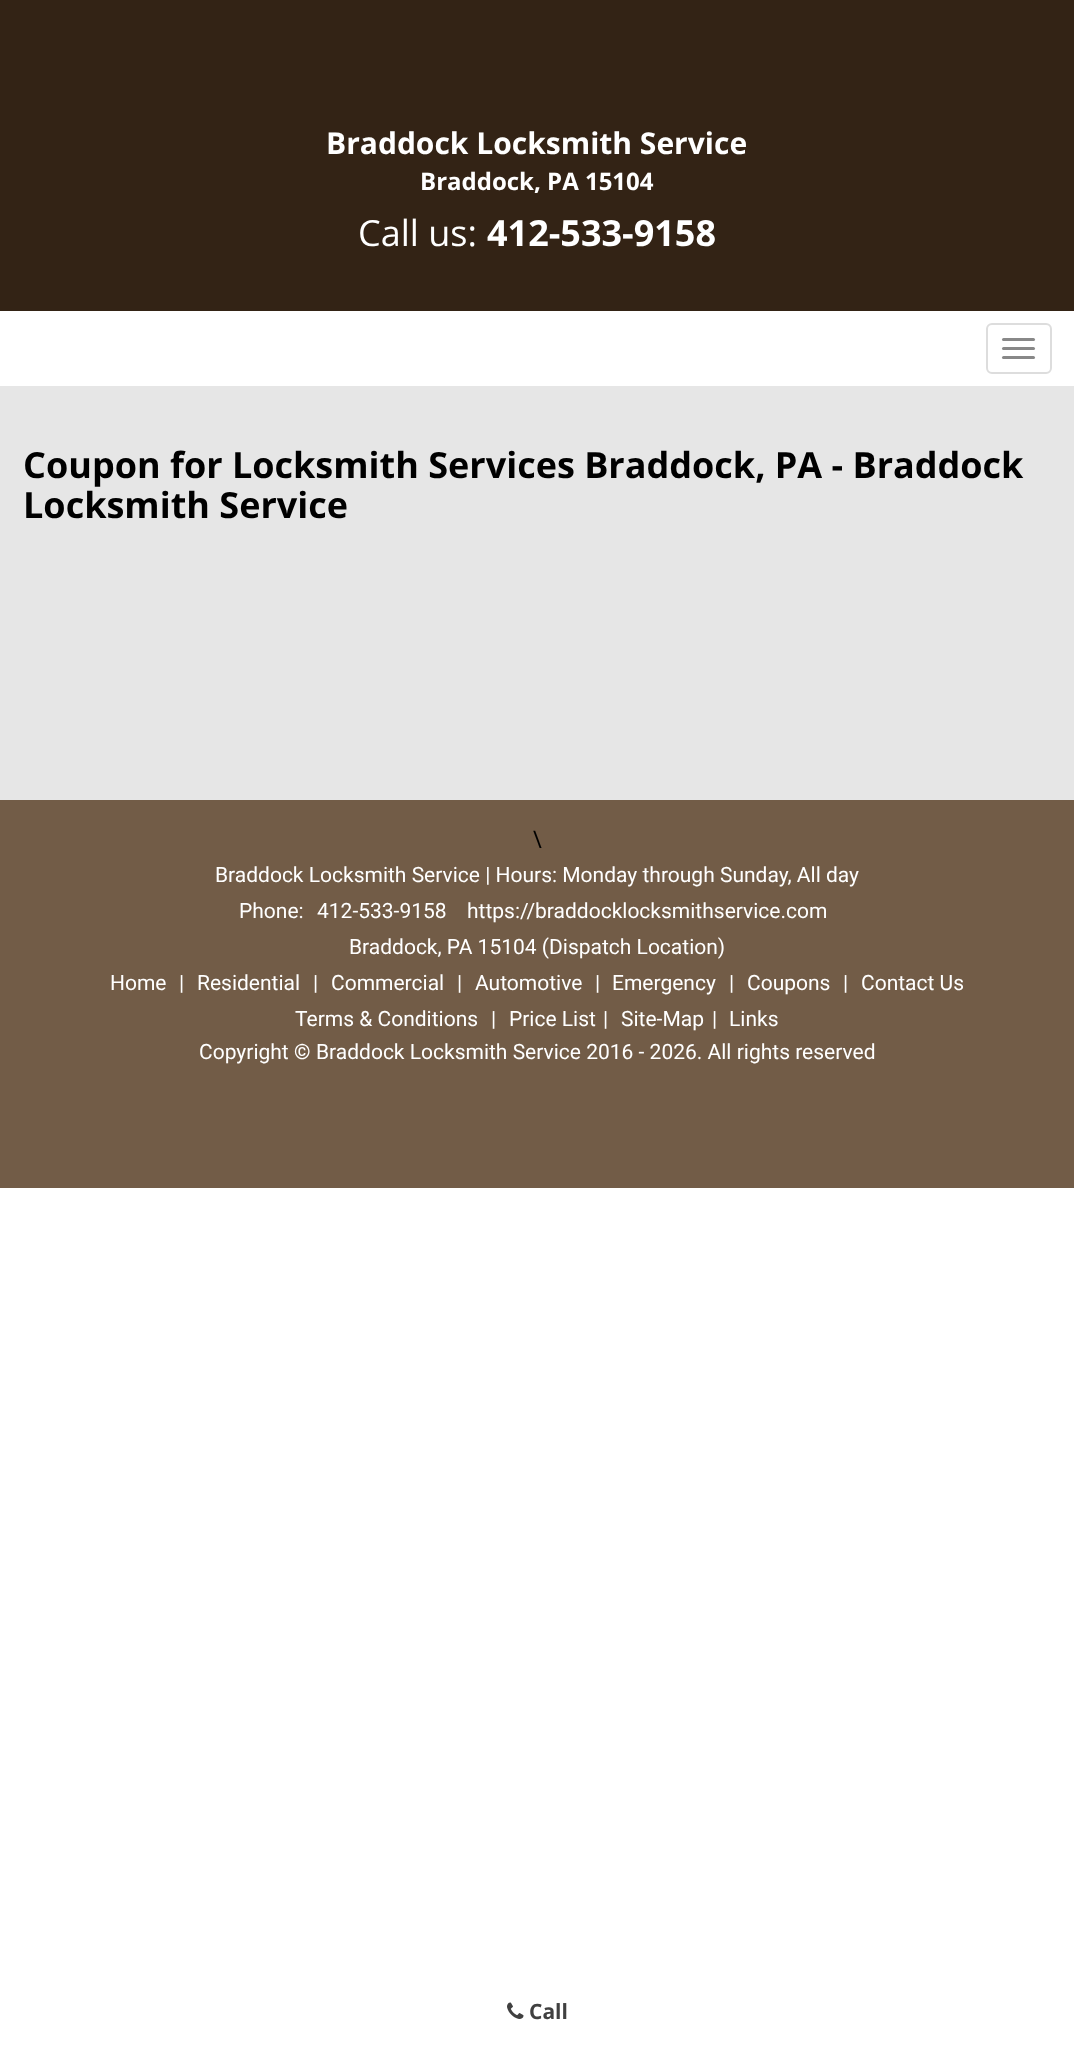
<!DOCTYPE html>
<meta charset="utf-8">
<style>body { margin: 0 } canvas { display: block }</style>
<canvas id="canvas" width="1074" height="2055"></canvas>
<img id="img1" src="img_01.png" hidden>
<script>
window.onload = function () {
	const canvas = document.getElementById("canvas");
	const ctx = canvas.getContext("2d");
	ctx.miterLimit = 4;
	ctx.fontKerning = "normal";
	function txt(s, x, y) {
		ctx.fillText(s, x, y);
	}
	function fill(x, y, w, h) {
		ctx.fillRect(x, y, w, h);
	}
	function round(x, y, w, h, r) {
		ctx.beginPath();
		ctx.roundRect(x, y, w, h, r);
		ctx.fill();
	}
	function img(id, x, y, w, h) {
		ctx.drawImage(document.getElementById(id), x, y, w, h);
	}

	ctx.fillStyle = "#FFFFFF";
	fill(0, 0, 1074, 2055);
	ctx.fillStyle = "#332315";
	fill(0, 0, 1074, 311);
	ctx.beginPath();
	ctx.roundRect(987, 324, 64, 49, 5);
	ctx.strokeStyle = "#DDDDDD";
	ctx.lineWidth = 2;
	ctx.stroke();
	ctx.fillStyle = "#888888";
	round(1002, 338, 33, 3, 1.5);
	round(1002, 347, 33, 3, 1.5);
	round(1002, 356, 33, 3, 1.5);
	ctx.fillStyle = "#E6E6E6";
	fill(0, 386, 1074, 414);
	ctx.fillStyle = "#725C47";
	fill(0, 800, 1074, 388);
	img("img1", 507, 2002, 17, 17);
	ctx.font = "bold 30px Open Sans";
	ctx.fillStyle = "#FFFFFF";
	txt("Braddock Locksmith Service", 326, 154);
	ctx.font = "bold 24px Open Sans";
	txt("Braddock, PA 15104", 420, 190);
	ctx.font = "36px Open Sans";
	txt("Call us:", 358, 246);
	ctx.font = "bold 36px Open Sans";
	txt("412-533-9158", 487, 246);
	ctx.fillStyle = "#000000";
	txt("Coupon for Locksmith Services Braddock, PA - Braddock", 23, 478);
	txt("Locksmith Service", 23, 518);
	ctx.font = "24px Open Sans";
	txt("\\", 533, 848);
	ctx.font = "21px Roboto";
	ctx.fillStyle = "#FFFFFF";
	txt("Braddock Locksmith Service | Hours: Monday through Sunday, All day", 215, 882);
	txt("Phone:", 239, 918);
	txt("412-533-9158", 317, 918);
	txt("https://braddocklocksmithservice.com", 467, 918);
	txt("Braddock, PA 15104 (Dispatch Location)", 349, 954);
	txt("Home", 110, 990);
	txt("|", 179, 990);
	txt("Residential", 197, 990);
	txt("|", 313, 990);
	txt("Commercial", 331, 990);
	txt("|", 457, 990);
	txt("Automotive", 475, 990);
	txt("|", 595, 990);
	txt("Emergency", 612, 990);
	txt("|", 729, 990);
	txt("Coupons", 747, 990);
	txt("|", 843, 990);
	txt("Contact Us", 861, 990);
	txt("Terms & Conditions", 295, 1026);
	txt("|", 491, 1026);
	txt("Price List", 509, 1026);
	txt("|", 603, 1026);
	txt("Site-Map", 621, 1026);
	txt("|", 712, 1026);
	txt("Links", 729, 1026);
	txt("Copyright", 199, 1059);
	ctx.font = "bold 21px Roboto";
	txt("©", 294, 1059);
	ctx.font = "21px Roboto";
	txt("Braddock Locksmith Service 2016 - 2026. All rights reserved", 316, 1059);
	ctx.font = "bold 21px Open Sans";
	ctx.fillStyle = "#404040";
	txt("Call", 529, 2019);
};
</script>
